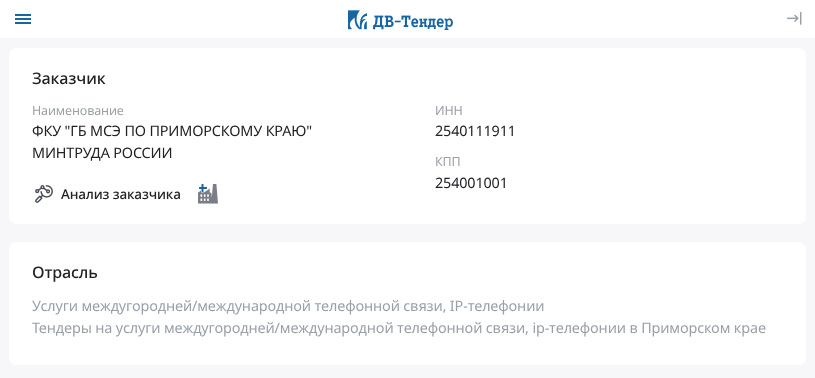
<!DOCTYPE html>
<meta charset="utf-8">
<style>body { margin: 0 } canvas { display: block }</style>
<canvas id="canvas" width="815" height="378"></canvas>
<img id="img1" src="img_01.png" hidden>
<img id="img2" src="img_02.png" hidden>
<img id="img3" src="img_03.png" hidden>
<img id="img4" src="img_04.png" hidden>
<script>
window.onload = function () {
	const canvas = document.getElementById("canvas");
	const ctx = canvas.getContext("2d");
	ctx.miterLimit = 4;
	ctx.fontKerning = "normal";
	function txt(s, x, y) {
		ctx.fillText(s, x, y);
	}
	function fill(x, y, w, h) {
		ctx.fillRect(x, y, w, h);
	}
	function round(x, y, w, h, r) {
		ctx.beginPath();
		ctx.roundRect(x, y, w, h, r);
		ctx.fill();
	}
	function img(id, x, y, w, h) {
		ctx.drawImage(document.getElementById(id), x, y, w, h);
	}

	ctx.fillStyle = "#F7F7FA";
	fill(0, 0, 815, 378);
	ctx.fillStyle = "#FFFFFF";
	fill(0, 0, 815, 38);
	ctx.fillStyle = "#1865A0";
	fill(15, 14, 16, 2);
	fill(15, 18, 16, 2);
	fill(15, 22, 16, 2);
	img("img1", 348, 10, 105, 20);
	img("img2", 787, 11, 15, 14);
	ctx.fillStyle = "#FFFFFF";
	round(9, 48, 797, 176, 7);
	img("img3", 35, 185, 18, 18);
	img("img4", 198, 184, 20, 20);
	round(9, 242, 797, 123, 7);
	ctx.letterSpacing = "-0.15px";
	ctx.font = "500 16px Noto Sans";
	ctx.fillStyle = "#202226";
	txt("Заказчик", 32, 84);
	ctx.font = "12.5px Noto Sans";
	ctx.fillStyle = "#99A0A8";
	txt("Наименование", 32, 115);
	ctx.font = "14.4px Noto Sans";
	ctx.fillStyle = "#202226";
	txt("ФКУ \"ГБ МСЭ ПО ПРИМОРСКОМУ КРАЮ\"", 32, 136);
	txt("МИНТРУДА РОССИИ", 32, 158);
	ctx.font = "500 13.5px Noto Sans";
	txt("Анализ заказчика", 61, 199);
	ctx.font = "12.5px Noto Sans";
	ctx.fillStyle = "#99A0A8";
	txt("ИНН", 435, 115);
	ctx.font = "14.4px Noto Sans";
	ctx.fillStyle = "#202226";
	txt("2540111911", 435, 136);
	ctx.font = "12.5px Noto Sans";
	ctx.fillStyle = "#99A0A8";
	txt("КПП", 435, 166);
	ctx.font = "14.4px Noto Sans";
	ctx.fillStyle = "#202226";
	txt("254001001", 435, 188);
	ctx.font = "500 16px Noto Sans";
	txt("Отрасль", 32, 278);
	ctx.font = "14.4px Noto Sans";
	ctx.fillStyle = "#99A0A8";
	txt("Услуги междугородней/международной телефонной связи, IP-телефонии", 32, 311);
	txt("Тендеры на услуги междугородней/международной телефонной связи, ip-телефонии в Приморском крае", 32, 333);
};
</script>
